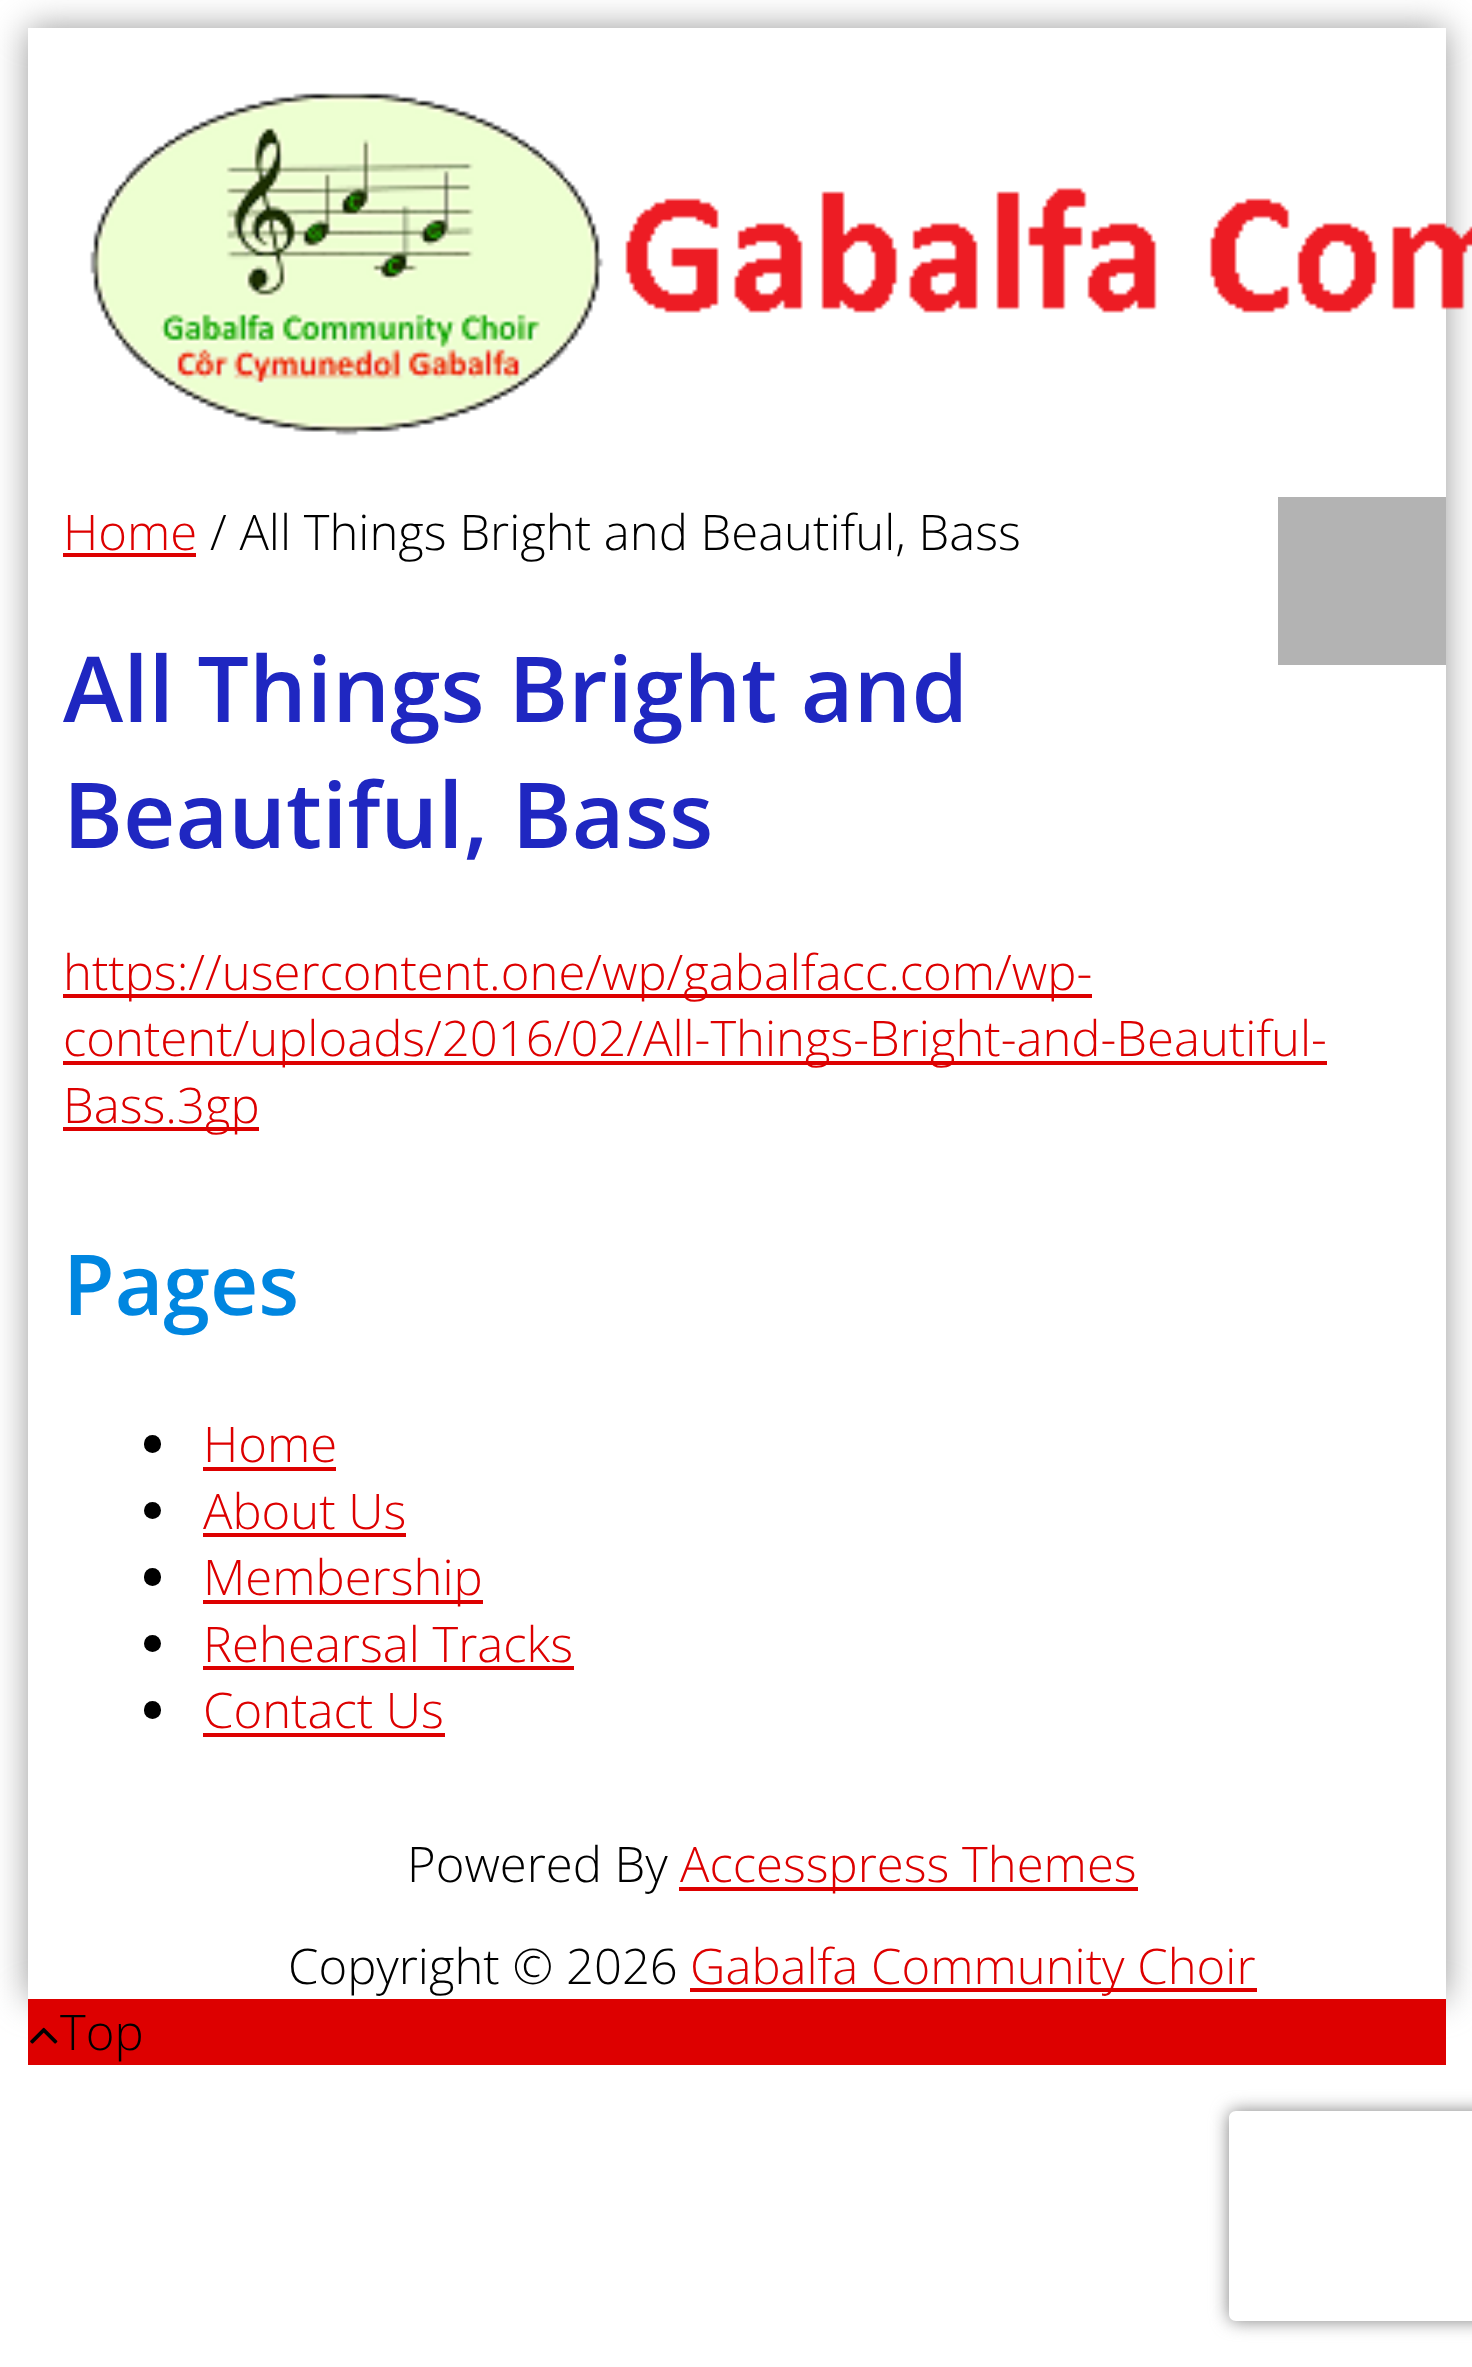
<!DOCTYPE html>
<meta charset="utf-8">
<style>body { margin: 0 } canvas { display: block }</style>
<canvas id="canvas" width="1472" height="2367"></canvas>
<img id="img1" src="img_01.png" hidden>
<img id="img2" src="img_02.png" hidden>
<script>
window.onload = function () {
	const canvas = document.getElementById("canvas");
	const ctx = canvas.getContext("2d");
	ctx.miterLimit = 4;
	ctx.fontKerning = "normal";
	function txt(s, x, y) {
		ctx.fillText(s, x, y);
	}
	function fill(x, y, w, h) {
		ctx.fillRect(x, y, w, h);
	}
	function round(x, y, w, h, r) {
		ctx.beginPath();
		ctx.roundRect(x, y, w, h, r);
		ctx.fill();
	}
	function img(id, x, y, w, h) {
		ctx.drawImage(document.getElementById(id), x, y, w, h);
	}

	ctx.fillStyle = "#FFFFFF";
	fill(0, 0, 1472, 2367);
	ctx.fillStyle = "#999999";
	ctx.filter = "blur(17.5px)";
	ctx.beginPath();
	ctx.rect(28, 28, 1418, 1971);
	ctx.fill();
	ctx.filter = "none";
	ctx.fillStyle = "#FFFFFF";
	fill(28, 28, 1418, 1971);
	img("img1", 89, 93, 1383, 343);
	ctx.fillStyle = "#B3B3B3";
	fill(1278, 497, 168, 168);
	ctx.fillStyle = "#DD0000";
	fill(63, 553, 133, 4);
	fill(63, 994, 1029, 4);
	fill(63, 1061, 1264, 4);
	fill(63, 1127, 196, 4);
	ctx.fillStyle = "#000000";
	round(144, 1435, 17, 18, 8.5);
	ctx.fillStyle = "#DD0000";
	fill(203, 1467, 133, 4);
	ctx.fillStyle = "#000000";
	ctx.beginPath();
	ctx.arc(152.5, 1510.5, 8.5, 0, Math.PI * 2);
	ctx.fill();
	ctx.fillStyle = "#DD0000";
	fill(203, 1533, 203, 4);
	ctx.fillStyle = "#000000";
	round(144, 1568, 17, 18, 8.5);
	ctx.fillStyle = "#DD0000";
	fill(203, 1600, 280, 4);
	ctx.fillStyle = "#000000";
	ctx.beginPath();
	ctx.arc(152.5, 1643.5, 8.5, 0, Math.PI * 2);
	ctx.fill();
	ctx.fillStyle = "#DD0000";
	fill(203, 1666, 371, 4);
	ctx.fillStyle = "#000000";
	round(144, 1701, 17, 18, 8.5);
	ctx.fillStyle = "#DD0000";
	fill(203, 1733, 242, 4);
	fill(679, 1887, 459, 4);
	fill(690, 1988, 567, 4);
	fill(28, 1999, 1418, 66);
	img("img2", 30, 2027, 28, 17);
	ctx.save();
	ctx.beginPath();
	ctx.moveTo(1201, 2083);
	ctx.lineTo(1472, 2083);
	ctx.lineTo(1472, 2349);
	ctx.lineTo(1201, 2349);
	ctx.closePath();
	ctx.moveTo(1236, 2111);
	ctx.lineTo(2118, 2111);
	ctx.bezierCurveTo(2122, 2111, 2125, 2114, 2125, 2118);
	ctx.lineTo(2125, 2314);
	ctx.bezierCurveTo(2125, 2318, 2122, 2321, 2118, 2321);
	ctx.lineTo(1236, 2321);
	ctx.bezierCurveTo(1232, 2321, 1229, 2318, 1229, 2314);
	ctx.lineTo(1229, 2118);
	ctx.bezierCurveTo(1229, 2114, 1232, 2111, 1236, 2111);
	ctx.closePath();
	ctx.clip("evenodd");
	ctx.fillStyle = "#808080";
	ctx.filter = "blur(9px)";
	ctx.beginPath();
	ctx.roundRect(1229, 2111, 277, 210, 7);
	ctx.fill();
	ctx.filter = "none";
	ctx.restore();
	ctx.font = "300 49px Open Sans";
	txt("Home", 63, 550);
	ctx.fillStyle = "#000000";
	txt("/ All Things Bright and Beautiful, Bass", 210, 550);
	ctx.font = "600 91px Open Sans";
	ctx.fillStyle = "#1F27C1";
	txt("All Things Bright and", 63, 722);
	txt("Beautiful, Bass", 63, 848);
	ctx.font = "300 49px Open Sans";
	ctx.fillStyle = "#DD0000";
	txt("https://usercontent.one/wp/gabalfacc.com/wp-", 63, 990);
	txt("content/uploads/2016/02/All-Things-Bright-and-Beautiful-", 63, 1056);
	txt("Bass.3gp", 63, 1123);
	ctx.font = "600 84px Open Sans";
	ctx.fillStyle = "#0086E0";
	txt("Pages", 63, 1315);
	ctx.font = "300 49px Open Sans";
	ctx.fillStyle = "#DD0000";
	txt("Home", 203, 1462);
	txt("About Us", 203, 1529);
	txt("Membership", 203, 1595);
	txt("Rehearsal Tracks", 203, 1662);
	txt("Contact Us", 203, 1728);
	ctx.fillStyle = "#000000";
	txt("Powered By", 407, 1882);
	ctx.fillStyle = "#DD0000";
	txt("Accesspress Themes", 680, 1882);
	ctx.fillStyle = "#000000";
	txt("Copyright © 2026", 288, 1984);
	ctx.fillStyle = "#DD0000";
	txt("Gabalfa Community Choir", 690, 1984);
	ctx.fillStyle = "#000000";
	txt("Top", 60, 2050);
};
</script>
